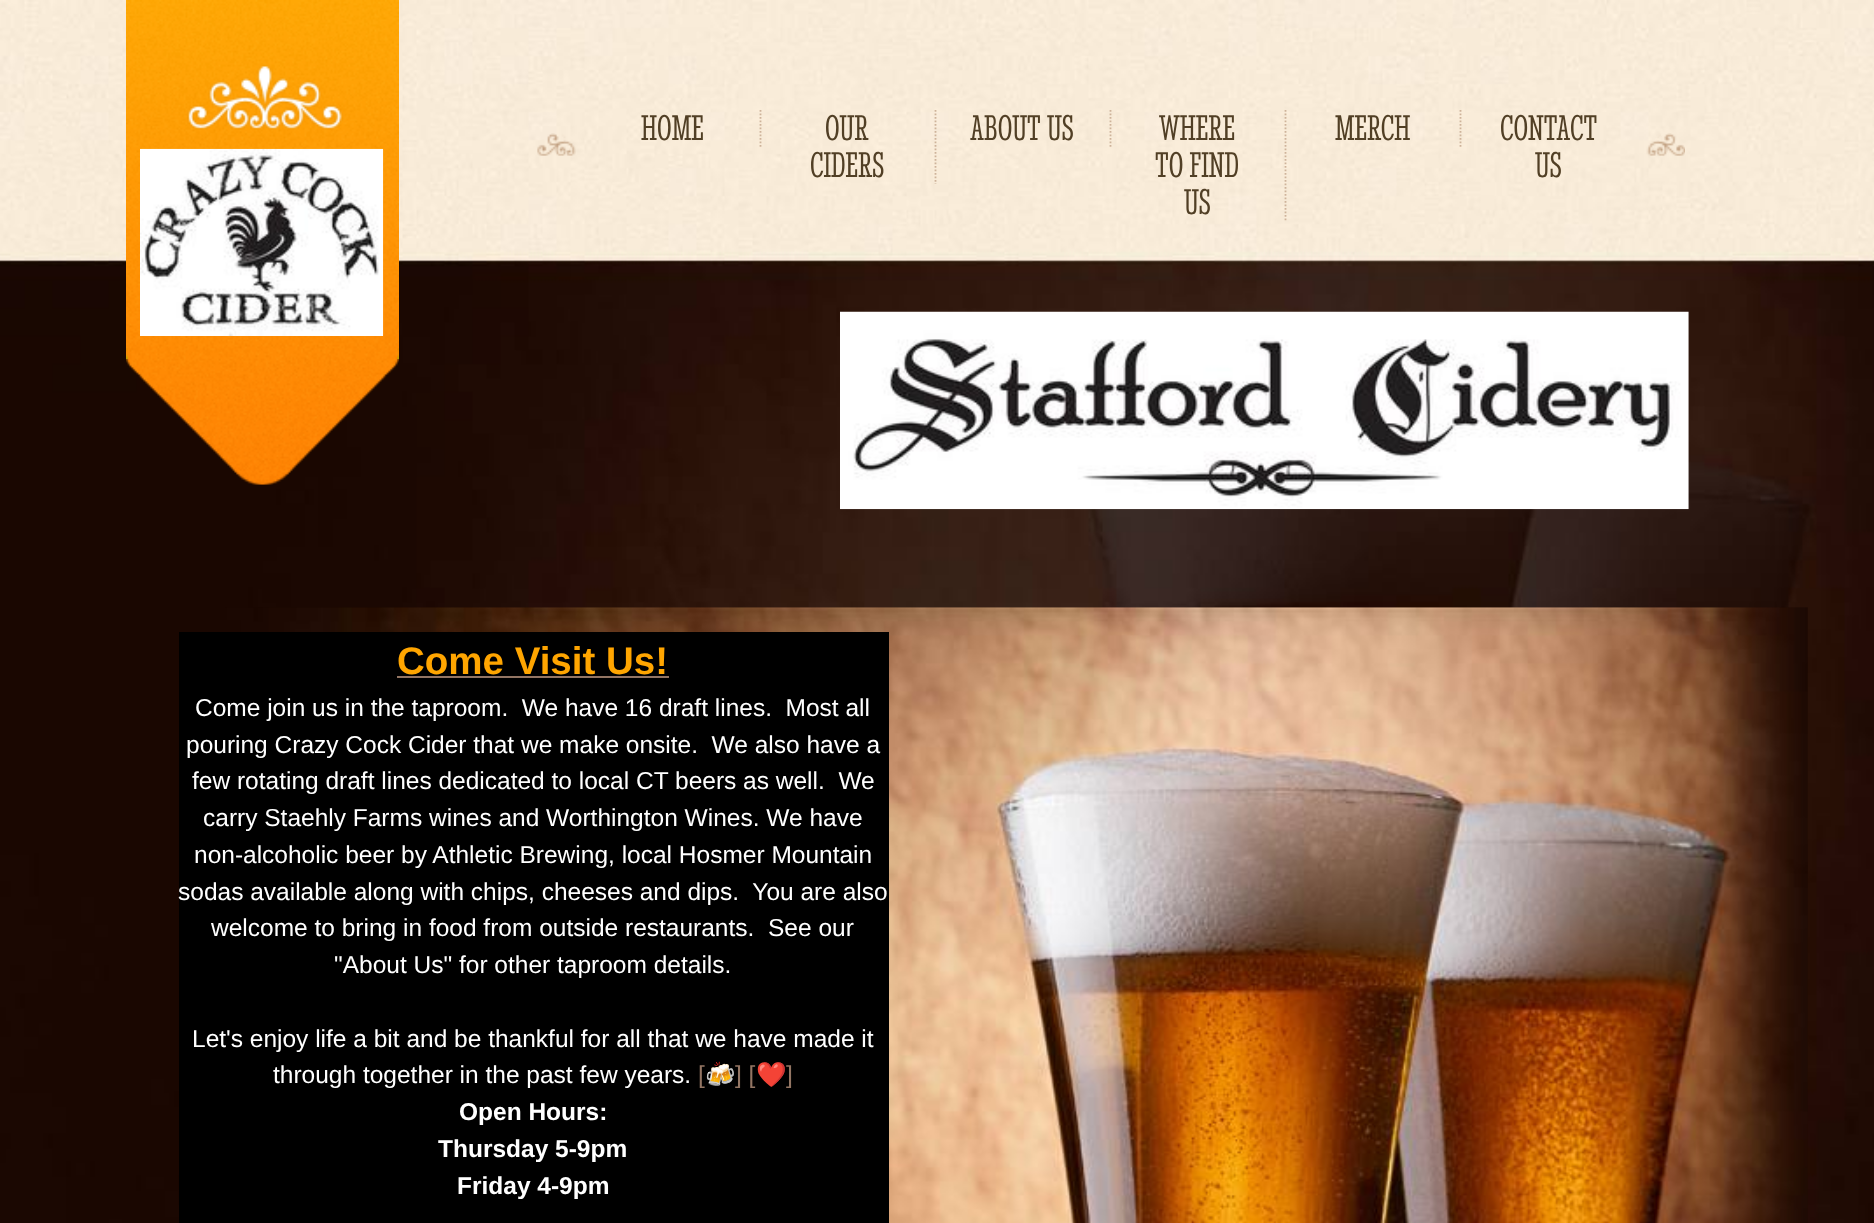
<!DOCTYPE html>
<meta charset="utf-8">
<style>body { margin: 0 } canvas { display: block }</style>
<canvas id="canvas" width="1874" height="1223"></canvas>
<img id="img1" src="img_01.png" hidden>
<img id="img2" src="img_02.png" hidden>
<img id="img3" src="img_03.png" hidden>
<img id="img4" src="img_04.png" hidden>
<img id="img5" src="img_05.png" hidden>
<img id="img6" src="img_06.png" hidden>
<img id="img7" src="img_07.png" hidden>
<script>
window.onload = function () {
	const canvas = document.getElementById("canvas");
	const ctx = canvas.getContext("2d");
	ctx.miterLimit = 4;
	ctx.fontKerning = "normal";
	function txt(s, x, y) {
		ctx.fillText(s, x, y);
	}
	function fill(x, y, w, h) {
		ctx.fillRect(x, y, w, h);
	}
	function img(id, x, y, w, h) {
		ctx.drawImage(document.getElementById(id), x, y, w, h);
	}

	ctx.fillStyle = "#FFFFFF";
	fill(0, 0, 1874, 1223);
	img("img1", 0, 0, 1874, 1223);
	ctx.fillStyle = "#5FBF00";
	fill(126, 346, 273, 13);
	img("img2", 126, 0, 273, 485);
	img("img3", 537, 133, 39, 23);
	ctx.beginPath();
	ctx.moveTo(760.5, 110);
	ctx.lineTo(760.5, 147);
	ctx.strokeStyle = "#CEB39A";
	ctx.lineWidth = 1.8;
	ctx.setLineDash([1.75, 1.75]);
	ctx.stroke();
	ctx.beginPath();
	ctx.moveTo(935.5, 110);
	ctx.lineTo(935.5, 184);
	ctx.stroke();
	ctx.beginPath();
	ctx.moveTo(1110.5, 110);
	ctx.lineTo(1110.5, 147);
	ctx.stroke();
	ctx.beginPath();
	ctx.moveTo(1285.5, 110);
	ctx.lineTo(1285.5, 220.5);
	ctx.stroke();
	ctx.beginPath();
	ctx.moveTo(1460.5, 110);
	ctx.lineTo(1460.5, 147);
	ctx.stroke();
	img("img4", 1646, 133, 39, 23);
	img("img5", 140, 148, 244, 188);
	img("img6", 840, 311, 849, 199);
	img("img7", 225, 607, 1583, 616);
	ctx.fillStyle = "#000000";
	fill(179, 632, 710, 591);
	ctx.fillStyle = "#937563";
	fill(397, 676, 272, 2);
	ctx.font = "37px Stint Ultra Condensed";
	ctx.fillStyle = "#513F25";
	txt("HOME", 641, 140);
	txt("OUR", 825, 140);
	txt("CIDERS", 810, 177);
	txt("ABOUT US", 970, 140);
	txt("WHERE", 1159, 140);
	txt("TO FIND", 1155, 177);
	txt("US", 1184, 214);
	txt("MERCH", 1335, 140);
	txt("CONTACT", 1500, 140);
	txt("US", 1535, 177);
	ctx.font = "bold 38.5px Liberation Sans";
	ctx.fillStyle = "#FFA500";
	txt("Come Visit Us!", 397, 674);
	ctx.font = "24.5px Liberation Sans";
	ctx.fillStyle = "#FFFFFF";
	txt("Come join us in the taproom.  We have 16 draft lines.  Most all", 195, 716);
	txt("pouring Crazy Cock Cider that we make onsite.  We also have a", 186, 753);
	txt("few rotating draft lines dedicated to local CT beers as well.  We", 192, 789);
	txt("carry Staehly Farms wines and Worthington Wines. We have", 203, 826);
	txt("non-alcoholic beer by Athletic Brewing, local Hosmer Mountain", 194, 863);
	txt("sodas available along with chips, cheeses and dips.  You are also", 178, 900);
	txt("welcome to bring in food from outside restaurants.", 211, 936);
	txt("See our", 768, 936);
	txt("\"About Us\" for other taproom details.", 334, 973);
	txt("Let's enjoy life a bit and be thankful for all that we have made it", 192, 1047);
	txt("through together in the past few years.", 273, 1083);
	ctx.fillStyle = "#937563";
	txt("[", 698, 1083);
	ctx.font = "24.5px Noto Color Emoji";
	txt("🍻", 705, 1083);
	ctx.font = "24.5px Liberation Sans";
	txt("] [", 735, 1083);
	ctx.font = "24.5px Noto Color Emoji";
	txt("❤️", 756, 1083);
	ctx.font = "24.5px Liberation Sans";
	txt("]", 786, 1083);
	ctx.font = "bold 24.5px Liberation Sans";
	ctx.fillStyle = "#FFFFFF";
	txt("Open Hours:", 459, 1120);
	txt("Thursday 5-9pm", 438, 1157);
	txt("Friday 4-9pm", 457, 1194);
};
</script>
